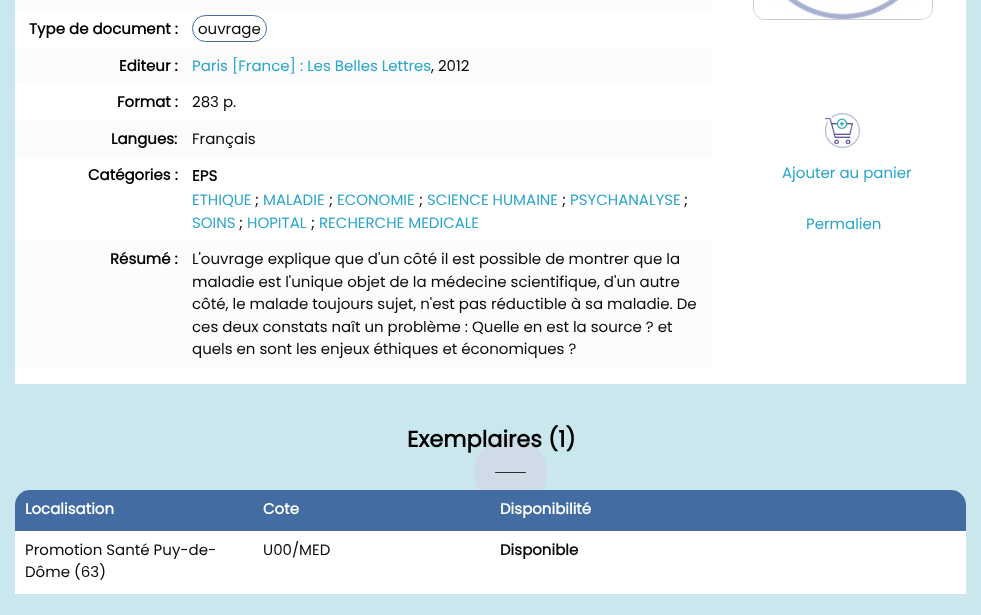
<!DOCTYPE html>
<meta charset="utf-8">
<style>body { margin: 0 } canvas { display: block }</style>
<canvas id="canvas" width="981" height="615"></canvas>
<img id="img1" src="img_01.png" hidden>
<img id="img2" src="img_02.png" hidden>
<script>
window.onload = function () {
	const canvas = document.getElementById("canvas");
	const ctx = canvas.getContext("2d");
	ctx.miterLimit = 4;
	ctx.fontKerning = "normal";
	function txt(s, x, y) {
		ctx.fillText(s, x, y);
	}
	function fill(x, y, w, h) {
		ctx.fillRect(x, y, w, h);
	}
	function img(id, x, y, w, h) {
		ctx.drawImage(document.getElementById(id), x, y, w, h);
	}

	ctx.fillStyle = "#CAE7EE";
	fill(0, 0, 981, 615);
	ctx.fillStyle = "#FFFFFF";
	fill(15, 0, 951, 384);
	ctx.fillStyle = "#FBFBFB";
	fill(15, 0, 697, 11);
	ctx.beginPath();
	ctx.roundRect(192.5, 15.5, 74, 26, 13);
	ctx.strokeStyle = "#426CA2";
	ctx.stroke();
	fill(15, 48, 697, 36);
	fill(15, 121, 697, 36);
	ctx.fillStyle = "#FCFCFC";
	fill(15, 241, 697, 127);
	ctx.beginPath();
	ctx.roundRect(753.5, -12.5, 179, 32, 11.5);
	ctx.strokeStyle = "#CCCCCC";
	ctx.stroke();
	img("img1", 754, 0, 178, 19);
	img("img2", 825, 113, 35, 35);
	ctx.fillStyle = "#D0DBE8";
	ctx.beginPath();
	ctx.arc(510.5, 472.5, 36.5, 0, Math.PI * 2);
	ctx.fill();
	ctx.beginPath();
	ctx.moveTo(495.5, 472.5);
	ctx.lineTo(525.5, 472.5);
	ctx.strokeStyle = "#000000";
	ctx.lineWidth = 0.8;
	ctx.lineCap = "round";
	ctx.stroke();
	ctx.fillStyle = "#426CA2";
	ctx.beginPath();
	ctx.roundRect(15, 490, 238, 41, [15, 0, 0, 0]);
	ctx.fill();
	fill(253, 490, 237, 41);
	ctx.beginPath();
	ctx.roundRect(490, 490, 476, 41, [0, 15, 0, 0]);
	ctx.fill();
	ctx.fillStyle = "#FFFFFF";
	fill(15, 531, 951, 63);
	ctx.font = "bold 15px Poppins";
	ctx.fillStyle = "#000000";
	txt("Type de document :", 29, 34);
	ctx.font = "15px Poppins";
	ctx.fillStyle = "#0A0A0A";
	txt("ouvrage", 198, 34);
	ctx.font = "bold 15px Poppins";
	ctx.fillStyle = "#000000";
	txt("Editeur :", 119, 71);
	ctx.font = "15px Poppins";
	ctx.fillStyle = "#2BA6CB";
	txt("Paris [France] : Les Belles Lettres", 192, 71);
	ctx.fillStyle = "#0A0A0A";
	txt(", 2012", 431, 71);
	ctx.font = "bold 15px Poppins";
	ctx.fillStyle = "#000000";
	txt("Format :", 117, 107);
	ctx.font = "15px Poppins";
	ctx.fillStyle = "#0A0A0A";
	txt("283 p.", 192, 107);
	ctx.font = "bold 15px Poppins";
	ctx.fillStyle = "#000000";
	txt("Langues:", 111, 144);
	ctx.font = "15px Poppins";
	ctx.fillStyle = "#0A0A0A";
	txt("Français", 192, 144);
	ctx.font = "bold 15px Poppins";
	ctx.fillStyle = "#000000";
	txt("Catégories :", 88, 180);
	ctx.fillStyle = "#0A0A0A";
	txt("EPS", 192, 181);
	ctx.font = "15px Poppins";
	ctx.fillStyle = "#2BA6CB";
	txt("ETHIQUE", 192, 205);
	ctx.fillStyle = "#0A0A0A";
	txt(";", 255, 205);
	ctx.fillStyle = "#2BA6CB";
	txt("MALADIE", 263, 205);
	ctx.fillStyle = "#0A0A0A";
	txt(";", 329, 205);
	ctx.fillStyle = "#2BA6CB";
	txt("ECONOMIE", 337, 205);
	ctx.fillStyle = "#0A0A0A";
	txt(";", 419, 205);
	ctx.fillStyle = "#2BA6CB";
	txt("SCIENCE HUMAINE", 427, 205);
	ctx.fillStyle = "#0A0A0A";
	txt(";", 562, 205);
	ctx.fillStyle = "#2BA6CB";
	txt("PSYCHANALYSE", 570, 205);
	ctx.fillStyle = "#0A0A0A";
	txt(";", 684, 205);
	ctx.fillStyle = "#2BA6CB";
	txt("SOINS", 192, 228);
	ctx.fillStyle = "#0A0A0A";
	txt(";", 239, 228);
	ctx.fillStyle = "#2BA6CB";
	txt("HOPITAL", 247, 228);
	ctx.fillStyle = "#0A0A0A";
	txt(";", 311, 228);
	ctx.fillStyle = "#2BA6CB";
	txt("RECHERCHE MEDICALE", 319, 228);
	ctx.font = "bold 15px Poppins";
	ctx.fillStyle = "#000000";
	txt("Résumé :", 110, 264);
	ctx.font = "15px Poppins";
	ctx.fillStyle = "#0A0A0A";
	txt("L'ouvrage explique que d'un côté il est possible de montrer que la", 192, 264);
	txt("maladie est l'unique objet de la médecine scientifique, d'un autre", 192, 287);
	txt("côté, le malade toujours sujet, n'est pas réductible à sa maladie. De", 192, 309);
	txt("ces deux constats naît un problème : Quelle en est la source ? et", 192, 332);
	txt("quels en sont les enjeux éthiques et économiques ?", 192, 354);
	ctx.fillStyle = "#2BA6CB";
	txt("Ajouter au panier", 782, 178);
	txt("Permalien", 806, 229);
	ctx.font = "bold 22.5px Poppins";
	ctx.fillStyle = "#000000";
	txt("Exemplaires (1)", 407, 447);
	ctx.font = "bold 15px Poppins";
	ctx.fillStyle = "#FFFFFF";
	txt("Localisation", 25, 514);
	txt("Cote", 263, 514);
	txt("Disponibilité", 500, 514);
	ctx.font = "15px Poppins";
	ctx.fillStyle = "#0A0A0A";
	txt("Promotion Santé Puy-de-", 25, 555);
	txt("Dôme (63)", 25, 577);
	txt("U00/MED", 263, 555);
	ctx.font = "bold 15px Poppins";
	txt("Disponible", 500, 555);
};
</script>
